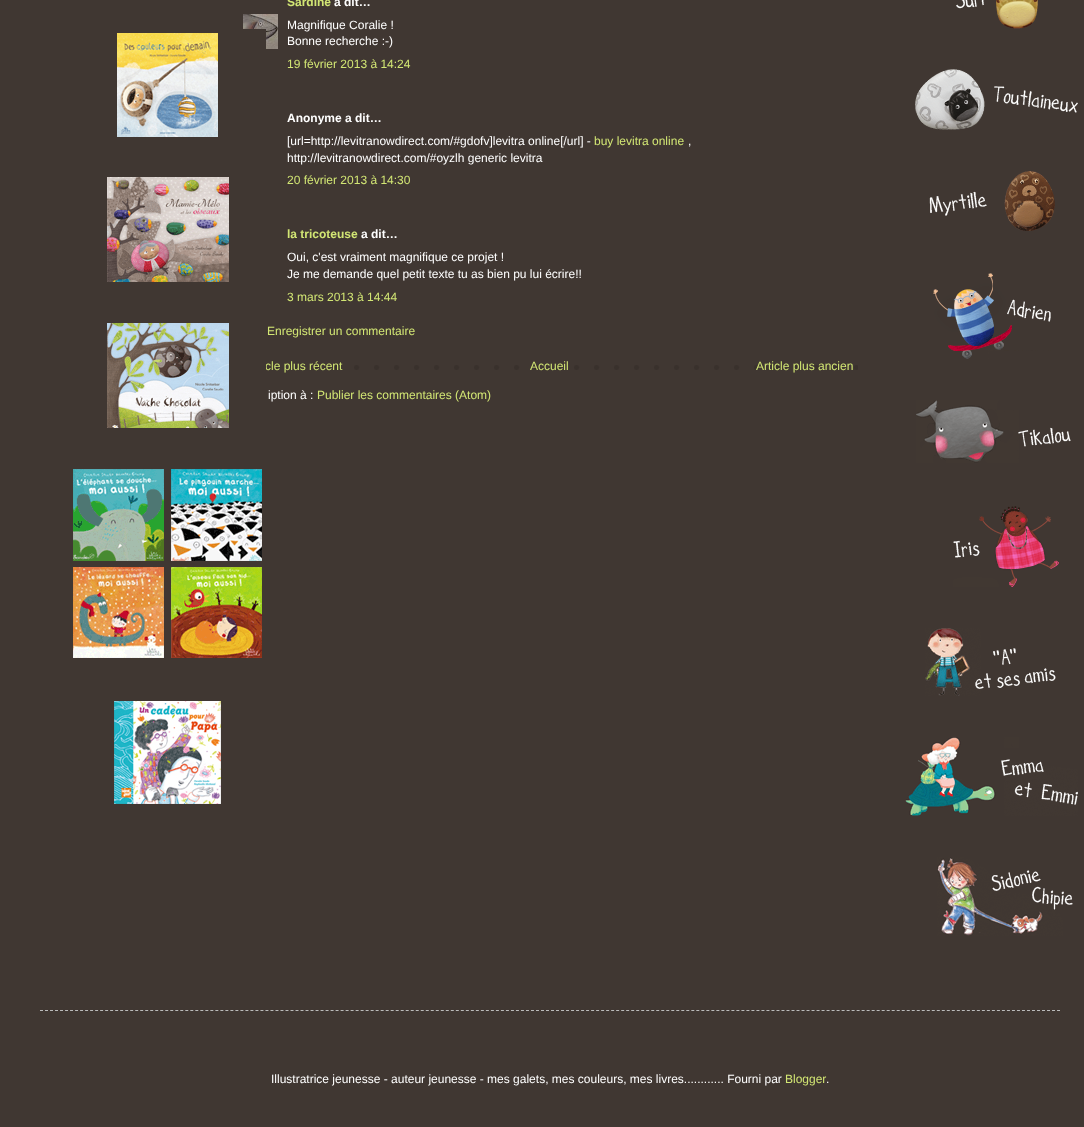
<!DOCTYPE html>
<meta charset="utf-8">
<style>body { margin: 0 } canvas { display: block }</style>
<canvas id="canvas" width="1084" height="1127"></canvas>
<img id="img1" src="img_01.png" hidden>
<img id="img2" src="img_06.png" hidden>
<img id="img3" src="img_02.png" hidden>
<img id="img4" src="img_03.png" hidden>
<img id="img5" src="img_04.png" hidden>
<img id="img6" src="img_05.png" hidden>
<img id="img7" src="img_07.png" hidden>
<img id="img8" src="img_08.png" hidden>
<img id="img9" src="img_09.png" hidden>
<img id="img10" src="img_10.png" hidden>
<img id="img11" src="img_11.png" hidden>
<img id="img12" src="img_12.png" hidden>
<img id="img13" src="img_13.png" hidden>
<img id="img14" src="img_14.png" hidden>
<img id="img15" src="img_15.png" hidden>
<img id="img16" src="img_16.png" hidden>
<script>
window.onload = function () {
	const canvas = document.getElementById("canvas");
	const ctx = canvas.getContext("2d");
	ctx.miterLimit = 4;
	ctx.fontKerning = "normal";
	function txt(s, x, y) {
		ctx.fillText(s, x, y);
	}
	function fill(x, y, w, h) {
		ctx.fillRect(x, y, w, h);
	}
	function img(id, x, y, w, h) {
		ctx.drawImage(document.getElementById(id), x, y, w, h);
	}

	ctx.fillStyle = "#403732";
	fill(0, 0, 1084, 1127);
	img("img1", 117, 33, 101, 104);
	img("img2", 243, 14, 35, 35);
	fill(243, 29, 23, 20);
	img("img3", 107, 177, 122, 105);
	img("img4", 107, 323, 122, 105);
	img("img5", 73, 469, 189, 189);
	img("img6", 114, 701, 107, 103);
	img("img7", 274, 365, 584, 5);
	img("img8", 956, 0, 82, 29);
	img("img9", 915, 69, 163, 61);
	img("img10", 929, 171, 126, 60);
	img("img11", 933, 273, 118, 86);
	img("img12", 916, 400, 155, 63);
	img("img13", 953, 506, 106, 81);
	img("img14", 925, 628, 131, 68);
	img("img15", 905, 737, 173, 79);
	img("img16", 937, 857, 136, 79);
	ctx.beginPath();
	ctx.moveTo(40, 1010.5);
	ctx.lineTo(1060, 1010.5);
	ctx.strokeStyle = "#BBBBBB";
	ctx.setLineDash([3, 2.01]);
	ctx.stroke();
	ctx.font = "bold 12px Liberation Sans";
	ctx.fillStyle = "#D2E674";
	txt("Sardine", 287, 6);
	ctx.fillStyle = "#FFFFFF";
	txt("a dit…", 334, 6);
	ctx.font = "12px Liberation Sans";
	txt("Magnifique Coralie !", 287, 29);
	txt("Bonne recherche :-)", 287, 45);
	ctx.fillStyle = "#D2E674";
	txt("19 février 2013 à 14:24", 287, 68);
	ctx.font = "bold 12px Liberation Sans";
	ctx.fillStyle = "#FFFFFF";
	txt("Anonyme a dit…", 287, 122);
	ctx.font = "12px Liberation Sans";
	txt("[url=http://levitranowdirect.com/#gdofv]levitra online[/url] -", 287, 145);
	ctx.fillStyle = "#D2E674";
	txt("buy levitra online", 594, 145);
	ctx.fillStyle = "#FFFFFF";
	txt(",", 688, 145);
	txt("http://levitranowdirect.com/#oyzlh generic levitra", 287, 162);
	ctx.fillStyle = "#D2E674";
	txt("20 février 2013 à 14:30", 287, 184);
	ctx.font = "bold 12px Liberation Sans";
	txt("la tricoteuse", 287, 238);
	ctx.fillStyle = "#FFFFFF";
	txt("a dit…", 361, 238);
	ctx.font = "12px Liberation Sans";
	txt("Oui, c'est vraiment magnifique ce projet !", 287, 261);
	txt("Je me demande quel petit texte tu as bien pu lui écrire!!", 287, 278);
	ctx.fillStyle = "#D2E674";
	txt("3 mars 2013 à 14:44", 287, 301);
	txt("Enregistrer un commentaire", 267, 335);
	txt("cle plus récent", 265, 370);
	ctx.fillStyle = "#403732";
	fill(265, 365, 1, 4);
	ctx.fillStyle = "#D2E674";
	txt("Accueil", 530, 370);
	txt("Article plus ancien", 756, 370);
	ctx.fillStyle = "#FFFFFF";
	txt("iption à :", 268, 399);
	ctx.fillStyle = "#D2E674";
	txt("Publier les commentaires (Atom)", 317, 399);
	ctx.fillStyle = "#FFFFFF";
	txt("Illustratrice jeunesse - auteur jeunesse - mes galets, mes couleurs, mes livres............ Fourni par", 271, 1083);
	ctx.fillStyle = "#D2E674";
	txt("Blogger", 785, 1083);
	ctx.fillStyle = "#FFFFFF";
	txt(".", 826, 1083);
};
</script>
